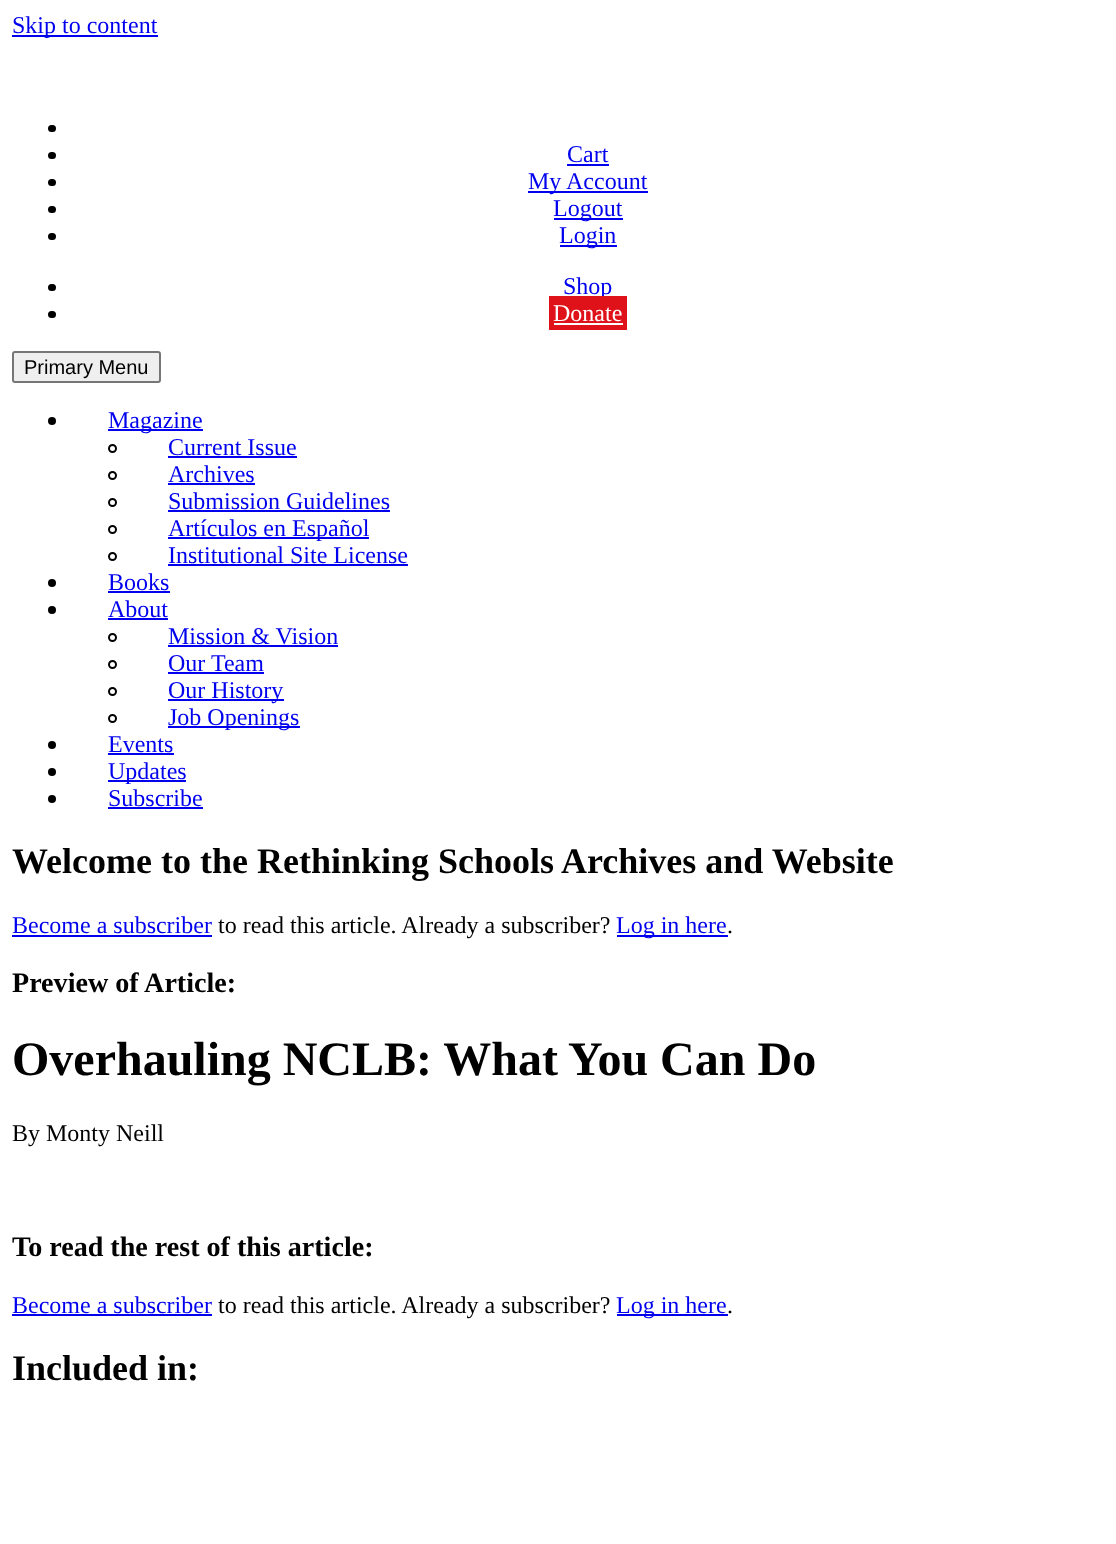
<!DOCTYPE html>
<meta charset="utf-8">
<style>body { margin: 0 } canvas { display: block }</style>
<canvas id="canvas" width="1116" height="1544"></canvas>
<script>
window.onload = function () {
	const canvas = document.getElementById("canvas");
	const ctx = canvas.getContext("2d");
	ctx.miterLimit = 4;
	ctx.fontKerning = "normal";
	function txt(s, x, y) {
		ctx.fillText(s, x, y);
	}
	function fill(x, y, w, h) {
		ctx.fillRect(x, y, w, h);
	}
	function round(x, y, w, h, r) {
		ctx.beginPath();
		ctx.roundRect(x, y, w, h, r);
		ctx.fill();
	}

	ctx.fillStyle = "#FFFFFF";
	fill(0, 0, 1116, 1544);
	ctx.fillStyle = "#0000EE";
	fill(12, 35, 146, 2);
	ctx.fillStyle = "#000000";
	round(48, 125, 8, 7, 3.5);
	round(48, 152, 8, 7, 3.5);
	ctx.fillStyle = "#0000EE";
	fill(567, 164, 42, 2);
	ctx.fillStyle = "#000000";
	round(48, 179, 8, 7, 3.5);
	ctx.fillStyle = "#0000EE";
	fill(528, 191, 120, 2);
	ctx.fillStyle = "#000000";
	round(48, 206, 8, 7, 3.5);
	ctx.fillStyle = "#0000EE";
	fill(554, 218, 69, 2);
	ctx.fillStyle = "#000000";
	round(48, 233, 8, 7, 3.5);
	ctx.fillStyle = "#0000EE";
	fill(560, 245, 57, 2);
	ctx.fillStyle = "#000000";
	round(48, 284, 8, 7, 3.5);
	round(48, 311, 8, 7, 3.5);
	ctx.fillStyle = "#EFEFEF";
	ctx.beginPath();
	ctx.roundRect(13, 352, 147, 30, 2);
	ctx.fill();
	ctx.strokeStyle = "#767676";
	ctx.lineWidth = 2;
	ctx.stroke();
	ctx.fillStyle = "#000000";
	ctx.beginPath();
	ctx.arc(52, 421, 4, 0, Math.PI * 2);
	ctx.fill();
	ctx.fillStyle = "#0000EE";
	fill(108, 429, 95, 2);
	ctx.beginPath();
	ctx.arc(112.5, 448.5, 3.5, 0, Math.PI * 2);
	ctx.strokeStyle = "#000000";
	ctx.stroke();
	fill(168, 456, 129, 2);
	ctx.beginPath();
	ctx.arc(112.5, 475.5, 3.5, 0, Math.PI * 2);
	ctx.stroke();
	fill(168, 483, 87, 2);
	ctx.beginPath();
	ctx.arc(112.5, 502.5, 3.5, 0, Math.PI * 2);
	ctx.stroke();
	fill(168, 510, 222, 2);
	ctx.beginPath();
	ctx.arc(112.5, 529.5, 3.5, 0, Math.PI * 2);
	ctx.stroke();
	fill(168, 537, 201, 2);
	ctx.beginPath();
	ctx.arc(112.5, 556.5, 3.5, 0, Math.PI * 2);
	ctx.stroke();
	fill(168, 564, 240, 2);
	ctx.fillStyle = "#000000";
	ctx.beginPath();
	ctx.arc(52, 583, 4, 0, Math.PI * 2);
	ctx.fill();
	ctx.fillStyle = "#0000EE";
	fill(108, 591, 62, 2);
	ctx.fillStyle = "#000000";
	ctx.beginPath();
	ctx.arc(52, 610, 4, 0, Math.PI * 2);
	ctx.fill();
	ctx.fillStyle = "#0000EE";
	fill(108, 618, 60, 2);
	ctx.beginPath();
	ctx.arc(112.5, 637.5, 3.5, 0, Math.PI * 2);
	ctx.stroke();
	fill(168, 645, 170, 2);
	ctx.beginPath();
	ctx.arc(112.5, 664.5, 3.5, 0, Math.PI * 2);
	ctx.stroke();
	fill(168, 672, 96, 2);
	ctx.beginPath();
	ctx.arc(112.5, 691.5, 3.5, 0, Math.PI * 2);
	ctx.stroke();
	fill(168, 699, 116, 2);
	ctx.beginPath();
	ctx.arc(112.5, 718.5, 3.5, 0, Math.PI * 2);
	ctx.stroke();
	fill(168, 726, 132, 2);
	ctx.fillStyle = "#000000";
	ctx.beginPath();
	ctx.arc(52, 745, 4, 0, Math.PI * 2);
	ctx.fill();
	ctx.fillStyle = "#0000EE";
	fill(108, 753, 66, 2);
	ctx.fillStyle = "#000000";
	ctx.beginPath();
	ctx.arc(52, 772, 4, 0, Math.PI * 2);
	ctx.fill();
	ctx.fillStyle = "#0000EE";
	fill(108, 780, 78, 2);
	ctx.fillStyle = "#000000";
	ctx.beginPath();
	ctx.arc(52, 799, 4, 0, Math.PI * 2);
	ctx.fill();
	ctx.fillStyle = "#0000EE";
	fill(108, 807, 95, 2);
	fill(12, 935, 200, 2);
	fill(617, 935, 111, 2);
	fill(12, 1314, 200, 2);
	fill(617, 1314, 111, 2);
	ctx.font = "24px Liberation Serif";
	txt("Skip to content", 12, 33);
	txt("Cart", 567, 162);
	txt("My Account", 528, 189);
	txt("Logout", 553, 216);
	txt("Login", 559, 243);
	txt("Shop", 563, 294);
	ctx.fillStyle = "#DE1218";
	fill(549, 296, 78, 34);
	ctx.fillStyle = "#FFFFFF";
	txt("Donate", 553, 321);
	fill(554, 323, 69, 2);
	ctx.font = "20px Liberation Sans";
	ctx.fillStyle = "#000000";
	txt("Primary Menu", 24, 374);
	ctx.font = "24px Liberation Serif";
	ctx.fillStyle = "#0000EE";
	txt("Magazine", 108, 428);
	txt("Current Issue", 168, 455);
	txt("Archives", 168, 482);
	txt("Submission Guidelines", 168, 509);
	txt("Artículos en Español", 168, 536);
	txt("Institutional Site License", 168, 563);
	txt("Books", 108, 590);
	txt("About", 108, 617);
	txt("Mission & Vision", 168, 644);
	txt("Our Team", 168, 671);
	txt("Our History", 168, 698);
	txt("Job Openings", 168, 725);
	txt("Events", 108, 752);
	txt("Updates", 108, 779);
	txt("Subscribe", 108, 806);
	ctx.font = "bold 36px Liberation Serif";
	ctx.fillStyle = "#000000";
	txt("Welcome to the Rethinking Schools Archives and Website", 12, 873);
	ctx.font = "24px Liberation Serif";
	ctx.fillStyle = "#0000EE";
	txt("Become a subscriber", 12, 933);
	ctx.fillStyle = "#000000";
	txt("to read this article. Already a subscriber?", 218, 933);
	ctx.fillStyle = "#0000EE";
	txt("Log in here", 616, 933);
	ctx.fillStyle = "#000000";
	txt(".", 727, 933);
	ctx.font = "bold 28.1px Liberation Serif";
	txt("Preview of Article:", 12, 992);
	ctx.font = "bold 48px Liberation Serif";
	txt("Overhauling NCLB: What You Can Do", 12, 1075);
	ctx.font = "24px Liberation Serif";
	txt("By Monty Neill", 12, 1141);
	ctx.font = "bold 28.1px Liberation Serif";
	txt("To read the rest of this article:", 12, 1256);
	ctx.font = "24px Liberation Serif";
	ctx.fillStyle = "#0000EE";
	txt("Become a subscriber", 12, 1313);
	ctx.fillStyle = "#000000";
	txt("to read this article. Already a subscriber?", 218, 1313);
	ctx.fillStyle = "#0000EE";
	txt("Log in here", 616, 1313);
	ctx.fillStyle = "#000000";
	txt(".", 727, 1313);
	ctx.font = "bold 36px Liberation Serif";
	txt("Included in:", 12, 1380);
};
</script>
